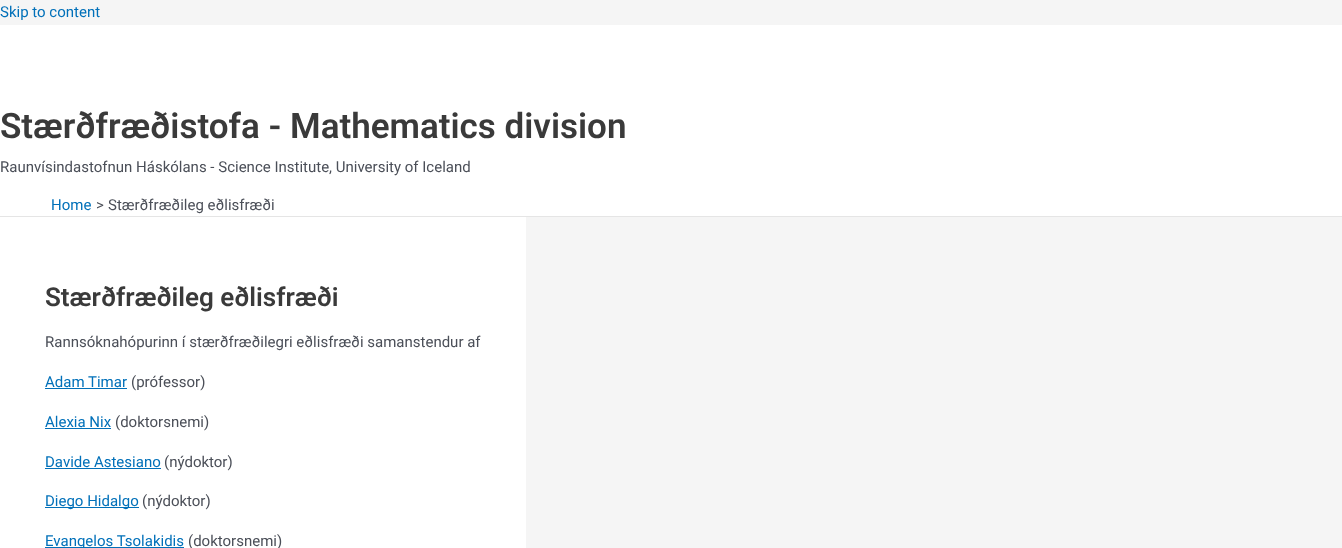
<!DOCTYPE html>
<meta charset="utf-8">
<style>body { margin: 0 } canvas { display: block }</style>
<canvas id="canvas" width="1342" height="548"></canvas>
<script>
window.onload = function () {
	const canvas = document.getElementById("canvas");
	const ctx = canvas.getContext("2d");
	ctx.miterLimit = 4;
	ctx.fontKerning = "normal";
	function txt(s, x, y) {
		ctx.fillText(s, x, y);
	}
	function fill(x, y, w, h) {
		ctx.fillRect(x, y, w, h);
	}

	ctx.fillStyle = "#F5F5F5";
	fill(0, 0, 1342, 548);
	ctx.fillStyle = "#FFFFFF";
	fill(0, 25, 1342, 191);
	ctx.fillStyle = "#E5E5E5";
	fill(0, 216, 1342, 1);
	ctx.fillStyle = "#FFFFFF";
	fill(0, 217, 526, 331);
	ctx.fillStyle = "#0170B9";
	fill(45, 388, 82, 1);
	fill(45, 428, 66, 1);
	fill(45, 468, 116, 1);
	fill(45, 507, 94, 1);
	fill(45, 547, 139, 1);
	ctx.font = "15px Roboto";
	txt("Skip to content", 0, 17);
	ctx.font = "600 35px Roboto";
	ctx.fillStyle = "#3A3A3A";
	txt("Stærðfræðistofa - Mathematics division", 0, 138);
	ctx.font = "15px Roboto";
	ctx.fillStyle = "#4B4F58";
	txt("Raunvísindastofnun Háskólans - Science Institute, University of Iceland", 0, 172);
	ctx.fillStyle = "#0170B9";
	txt("Home", 51, 210);
	ctx.fillStyle = "#4B4F58";
	txt(">", 96, 210);
	txt("Stærðfræðileg eðlisfræði", 108, 210);
	ctx.font = "600 26px Roboto";
	ctx.fillStyle = "#3A3A3A";
	txt("Stærðfræðileg eðlisfræði", 45, 306);
	ctx.font = "15px Roboto";
	ctx.fillStyle = "#4B4F58";
	txt("Rannsóknahópurinn í stærðfræðilegri eðlisfræði samanstendur af", 45, 347);
	ctx.fillStyle = "#0170B9";
	txt("Adam Timar", 45, 387);
	ctx.fillStyle = "#4B4F58";
	txt("(prófessor)", 131, 387);
	ctx.fillStyle = "#0170B9";
	txt("Alexia Nix", 45, 427);
	ctx.fillStyle = "#4B4F58";
	txt("(doktorsnemi)", 115, 427);
	ctx.fillStyle = "#0170B9";
	txt("Davide Astesiano", 45, 467);
	ctx.fillStyle = "#4B4F58";
	txt("(nýdoktor)", 164, 467);
	ctx.fillStyle = "#0170B9";
	txt("Diego Hidalgo", 45, 506);
	ctx.fillStyle = "#4B4F58";
	txt("(nýdoktor)", 142, 506);
	ctx.fillStyle = "#0170B9";
	txt("Evangelos Tsolakidis", 45, 546);
	ctx.fillStyle = "#4B4F58";
	txt("(doktorsnemi)", 188, 546);
};
</script>
